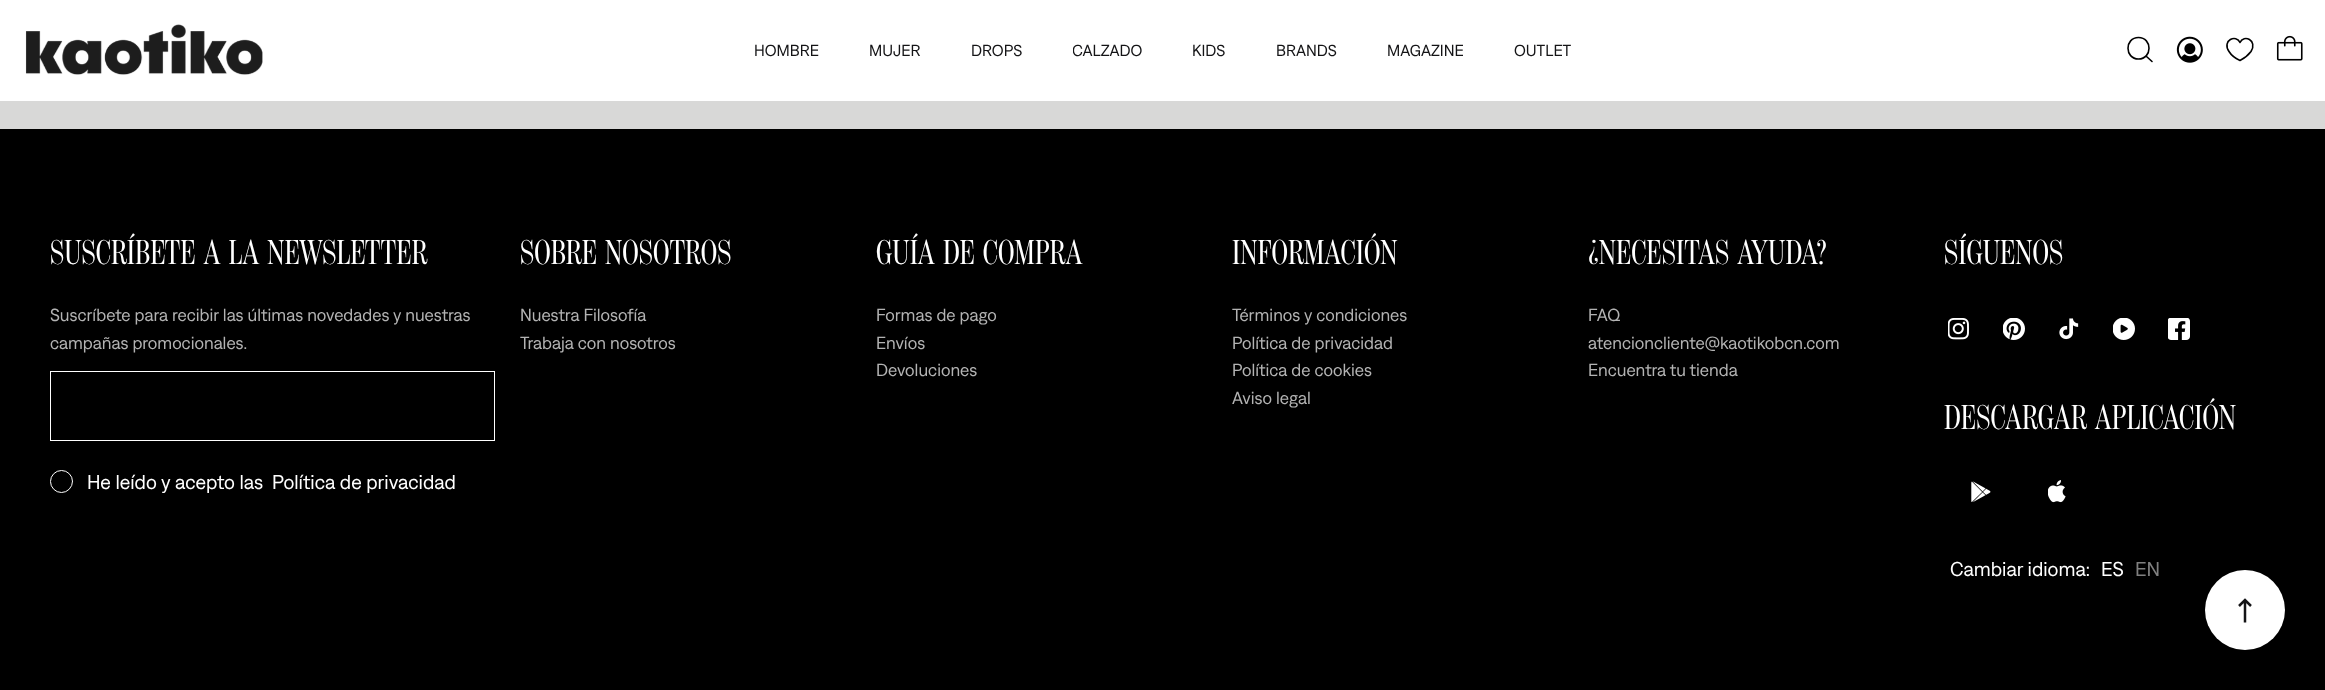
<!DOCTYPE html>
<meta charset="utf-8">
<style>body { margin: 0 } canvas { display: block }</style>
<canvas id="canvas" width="2325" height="690"></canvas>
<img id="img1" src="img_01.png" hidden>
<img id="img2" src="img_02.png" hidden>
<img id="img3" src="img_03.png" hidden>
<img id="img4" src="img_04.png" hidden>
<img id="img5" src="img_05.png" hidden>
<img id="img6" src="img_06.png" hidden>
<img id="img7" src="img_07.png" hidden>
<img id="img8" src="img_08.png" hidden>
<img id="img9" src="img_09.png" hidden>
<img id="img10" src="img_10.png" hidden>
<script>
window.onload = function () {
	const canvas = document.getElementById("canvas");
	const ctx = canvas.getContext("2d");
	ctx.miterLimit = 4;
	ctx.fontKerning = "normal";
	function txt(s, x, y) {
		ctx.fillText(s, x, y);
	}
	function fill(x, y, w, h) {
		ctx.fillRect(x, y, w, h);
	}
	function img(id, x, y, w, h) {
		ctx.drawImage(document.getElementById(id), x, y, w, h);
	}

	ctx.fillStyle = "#000000";
	fill(0, 0, 2325, 690);
	ctx.fillStyle = "#FFFFFF";
	fill(0, 0, 2325, 101);
	img("img1", 25, 24, 238, 51);
	ctx.beginPath();
	ctx.moveTo(2138.5, 59);
	ctx.bezierCurveTo(2152.5, 59, 2152.5, 37.5, 2138.5, 37.5);
	ctx.bezierCurveTo(2124.5, 37.5, 2124.5, 59, 2138.5, 59);
	ctx.closePath();
	ctx.moveTo(2152, 61.5);
	ctx.lineTo(2146, 56);
	ctx.strokeStyle = "#000000";
	ctx.lineWidth = 1.6;
	ctx.lineCap = "round";
	ctx.lineJoin = "round";
	ctx.stroke();
	img("img2", 2176, 36, 27, 27);
	ctx.beginPath();
	ctx.moveTo(2240, 60.5);
	ctx.bezierCurveTo(2235.5, 58.5, 2231.5, 55.5, 2229, 51.5);
	ctx.bezierCurveTo(2221.5, 40, 2236.5, 34, 2240, 42.5);
	ctx.bezierCurveTo(2243.5, 34, 2258, 40, 2251, 51.5);
	ctx.bezierCurveTo(2248, 55.5, 2244, 58.5, 2240, 60.5);
	ctx.closePath();
	ctx.stroke();
	img("img3", 2276, 35, 27, 26);
	ctx.fillStyle = "#D8D8D7";
	fill(0, 101, 2325, 28);
	ctx.strokeStyle = "#FFFFFF";
	ctx.lineWidth = 1;
	ctx.lineJoin = "miter";
	ctx.strokeRect(50.5, 371.5, 444, 69);
	ctx.beginPath();
	ctx.arc(61.5, 481.5, 11, 0, Math.PI * 2);
	ctx.stroke();
	img("img4", 1948, 318, 21, 22);
	img("img5", 2003, 318, 22, 22);
	img("img6", 2059, 318, 20, 22);
	img("img7", 2113, 318, 22, 22);
	img("img8", 2168, 318, 22, 22);
	img("img9", 1971, 481, 20, 21);
	img("img10", 2048, 480, 18, 23);
	ctx.fillStyle = "#FFFFFF";
	ctx.beginPath();
	ctx.arc(2245, 610, 40, 0, Math.PI * 2);
	ctx.fill();
	ctx.beginPath();
	ctx.moveTo(2245, 622.5);
	ctx.lineTo(2245, 600);
	ctx.moveTo(2239, 606);
	ctx.lineTo(2245, 600);
	ctx.lineTo(2251, 606);
	ctx.strokeStyle = "#141416";
	ctx.lineWidth = 2.5;
	ctx.lineCap = "butt";
	ctx.stroke();
	ctx.font = "16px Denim";
	ctx.fillStyle = "#141416";
	txt("HOMBRE", 754, 56);
	txt("MUJER", 869, 56);
	txt("DROPS", 971, 56);
	ctx.save();
	ctx.beginPath();
	ctx.rect(1073, 38, 70, 25);
	ctx.clip();
	txt("CALZADO", 1072, 56);
	ctx.restore();
	txt("KIDS", 1192, 56);
	txt("BRANDS", 1276, 56);
	txt("MAGAZINE", 1387, 56);
	txt("OUTLET", 1514, 56);
	ctx.font = "35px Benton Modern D";
	ctx.fillStyle = "#FFFFFF";
	txt("SUSCRÍBETE A LA NEWSLETTER", 50, 264);
	ctx.font = "17.5px Denim";
	ctx.fillStyle = "#B3B3B3";
	txt("Suscríbete para recibir las últimas novedades y nuestras", 50, 321);
	txt("campañas promocionales.", 50, 349);
	ctx.font = "20px Denim";
	ctx.fillStyle = "#FFFFFF";
	txt("He leído y acepto las", 87, 489);
	txt("Política de privacidad", 272, 489);
	ctx.font = "35px Benton Modern D";
	txt("SOBRE NOSOTROS", 520, 264);
	ctx.font = "17.5px Denim";
	ctx.fillStyle = "#B3B3B3";
	txt("Nuestra Filosofía", 520, 321);
	txt("Trabaja con nosotros", 520, 349);
	ctx.font = "35px Benton Modern D";
	ctx.fillStyle = "#FFFFFF";
	txt("GUÍA DE COMPRA", 876, 264);
	ctx.font = "17.5px Denim";
	ctx.fillStyle = "#B3B3B3";
	txt("Formas de pago", 876, 321);
	txt("Envíos", 876, 349);
	txt("Devoluciones", 876, 376);
	ctx.font = "35px Benton Modern D";
	ctx.fillStyle = "#FFFFFF";
	txt("INFORMACIÓN", 1232, 264);
	ctx.font = "17.5px Denim";
	ctx.fillStyle = "#B3B3B3";
	txt("Términos y condiciones", 1232, 321);
	txt("Política de privacidad", 1232, 349);
	txt("Política de cookies", 1232, 376);
	txt("Aviso legal", 1232, 404);
	ctx.font = "35px Benton Modern D";
	ctx.fillStyle = "#FFFFFF";
	txt("¿NECESITAS AYUDA?", 1588, 264);
	ctx.font = "17.5px Denim";
	ctx.fillStyle = "#B3B3B3";
	txt("FAQ", 1588, 321);
	txt("atencioncliente@kaotikobcn.com", 1588, 349);
	txt("Encuentra tu tienda", 1588, 376);
	ctx.font = "35px Benton Modern D";
	ctx.fillStyle = "#FFFFFF";
	txt("SÍGUENOS", 1944, 264);
	txt("DESCARGAR APLICACIÓN", 1944, 429);
	ctx.font = "20px Denim";
	txt("Cambiar idioma:", 1950, 576);
	txt("ES", 2101, 576);
	ctx.fillStyle = "#808080";
	txt("EN", 2135, 576);
};
</script>
